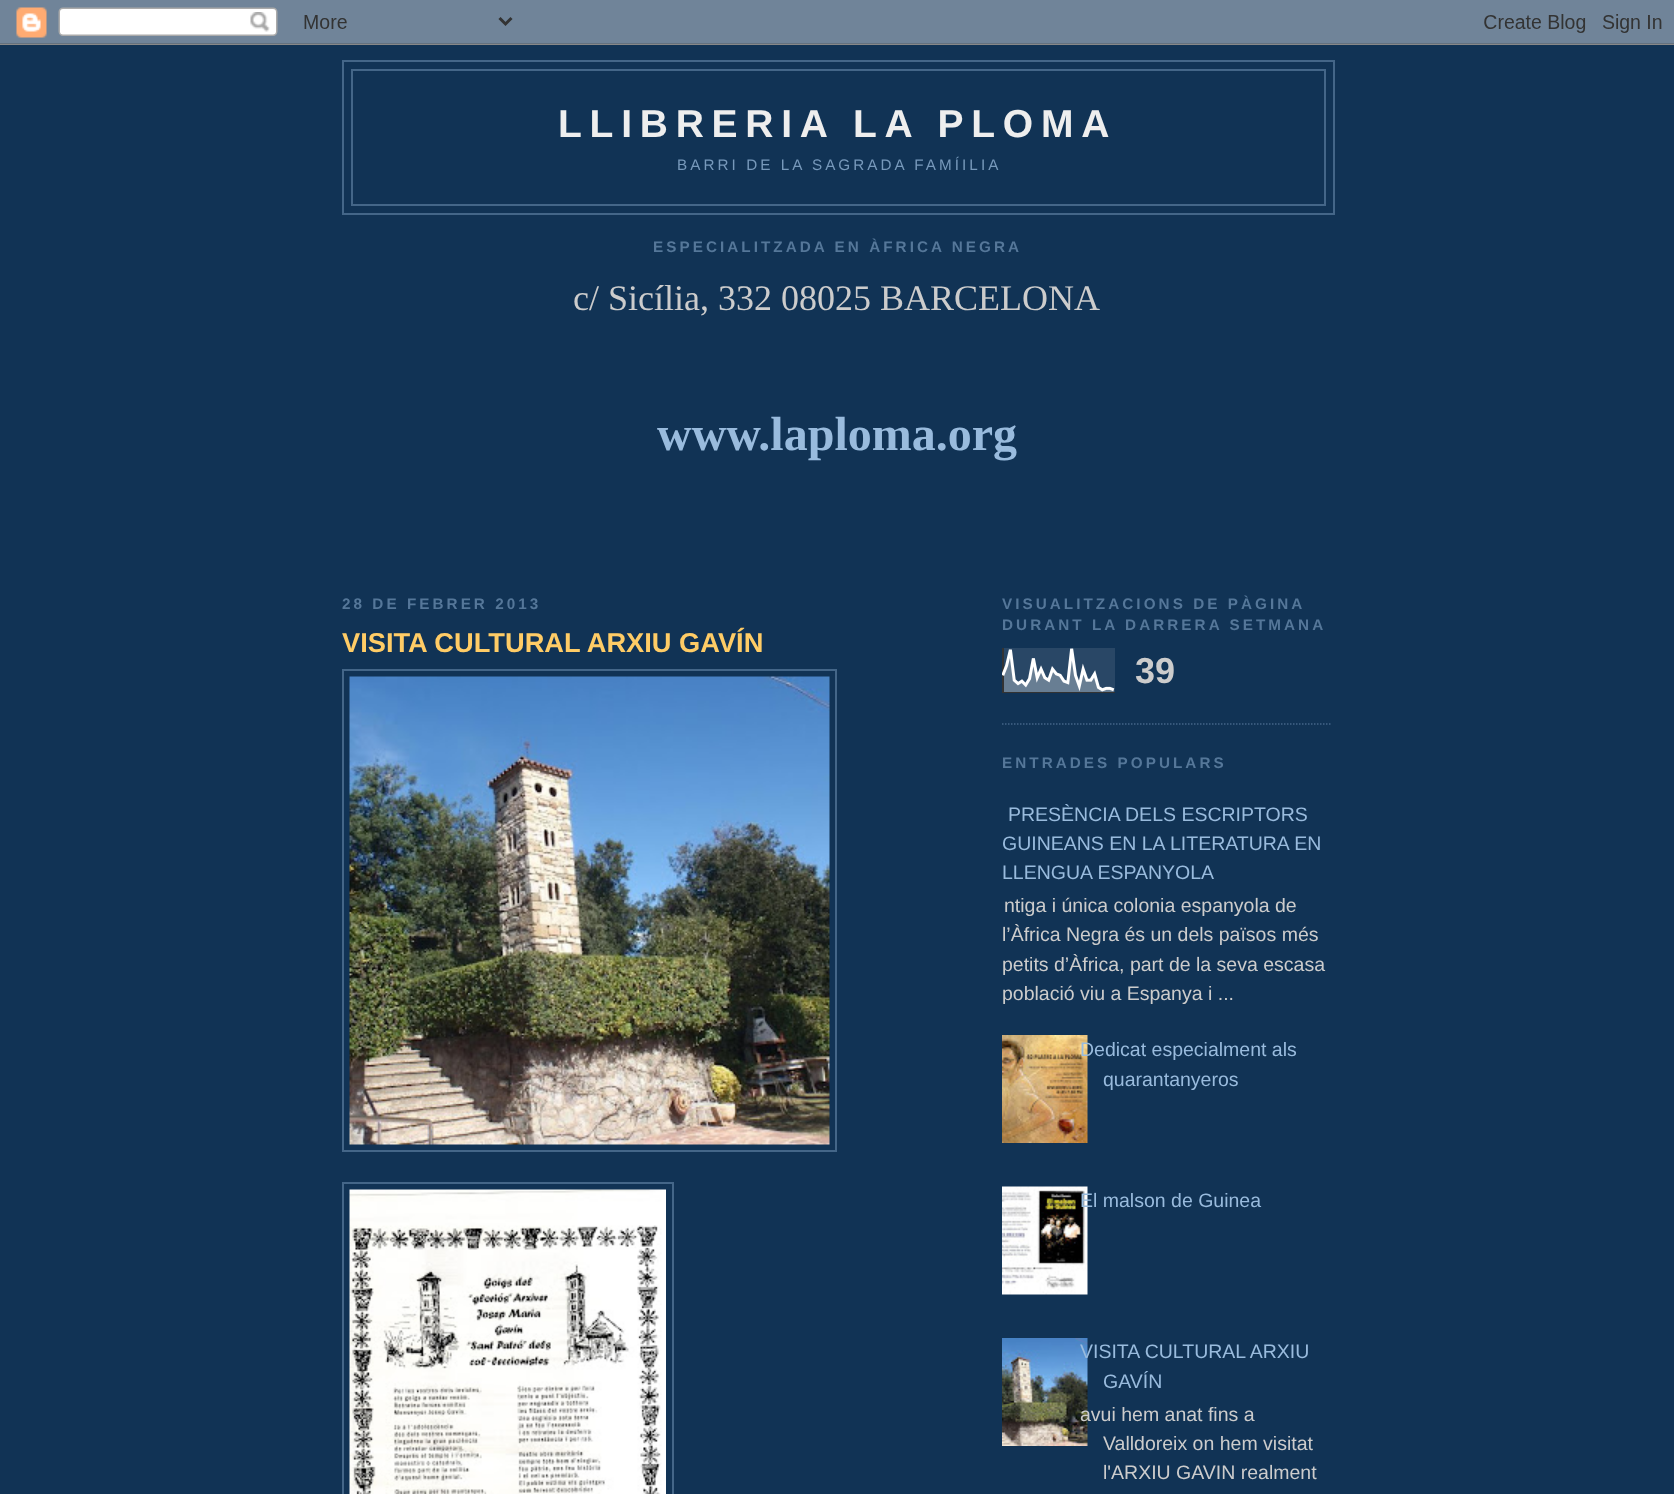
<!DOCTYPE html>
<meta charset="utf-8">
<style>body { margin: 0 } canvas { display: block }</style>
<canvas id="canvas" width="1674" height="1494"></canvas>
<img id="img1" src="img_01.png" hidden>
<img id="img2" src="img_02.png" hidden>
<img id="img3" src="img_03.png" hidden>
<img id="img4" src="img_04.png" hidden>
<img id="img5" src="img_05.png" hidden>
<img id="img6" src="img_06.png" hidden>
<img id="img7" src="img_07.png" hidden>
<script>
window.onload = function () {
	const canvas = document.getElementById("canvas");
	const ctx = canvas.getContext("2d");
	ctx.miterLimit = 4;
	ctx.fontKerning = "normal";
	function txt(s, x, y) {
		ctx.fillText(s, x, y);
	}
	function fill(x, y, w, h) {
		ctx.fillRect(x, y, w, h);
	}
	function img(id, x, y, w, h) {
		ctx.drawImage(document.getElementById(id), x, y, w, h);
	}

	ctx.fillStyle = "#113355";
	fill(0, 0, 1674, 1494);
	img("img1", 0, 0, 1674, 45);
	ctx.strokeStyle = "#446688";
	ctx.lineWidth = 2;
	ctx.strokeRect(343, 61, 991, 153);
	ctx.strokeRect(352, 70, 973, 135);
	ctx.strokeRect(343, 670, 493, 481);
	img("img2", 349, 676, 481, 469);
	ctx.strokeRect(343, 1183, 330, 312);
	img("img3", 349, 1189, 317, 305);
	ctx.beginPath();
	ctx.moveTo(1002, 724);
	ctx.lineTo(1332, 724);
	ctx.lineWidth = 1.5;
	ctx.setLineDash([1.5, 1.5]);
	ctx.stroke();
	img("img4", 1002, 648, 113, 45);
	img("img5", 1002, 1035, 86, 108);
	img("img6", 1002, 1186, 86, 109);
	img("img7", 1002, 1338, 86, 108);
	ctx.letterSpacing = "7.75px";
	ctx.font = "bold 39px Liberation Sans";
	ctx.fillStyle = "#EEEEEE";
	txt("LLIBRERIA LA PLOMA", 558, 137);
	ctx.letterSpacing = "3.05px";
	ctx.font = "15.25px Liberation Sans";
	ctx.fillStyle = "#7799BB";
	txt("BARRI DE LA SAGRADA FAMÍILIA", 677, 170);
	ctx.font = "bold 15.25px Liberation Sans";
	ctx.fillStyle = "#557799";
	txt("ESPECIALITZADA EN ÀFRICA NEGRA", 653, 252);
	ctx.letterSpacing = "0px";
	ctx.font = "36px Liberation Serif";
	ctx.fillStyle = "#CCCCCC";
	txt("c/ Sicília, 332 08025 BARCELONA", 573, 310);
	ctx.font = "bold 48px Liberation Serif";
	ctx.fillStyle = "#99BBDD";
	txt("www.laploma.org", 657, 450);
	ctx.letterSpacing = "3.05px";
	ctx.font = "bold 15.25px Liberation Sans";
	ctx.fillStyle = "#557799";
	txt("28 DE FEBRER 2013", 342, 609);
	ctx.letterSpacing = "0px";
	ctx.font = "bold 27.25px Liberation Sans";
	ctx.fillStyle = "#FFCC66";
	txt("VISITA CULTURAL ARXIU GAVÍN", 342, 652);
	ctx.letterSpacing = "3.05px";
	ctx.font = "bold 15.25px Liberation Sans";
	ctx.fillStyle = "#557799";
	txt("VISUALITZACIONS DE PÀGINA", 1002, 609);
	txt("DURANT LA DARRERA SETMANA", 1002, 630);
	ctx.letterSpacing = "0px";
	ctx.font = "bold 36px Liberation Sans";
	ctx.fillStyle = "#CCCCCC";
	txt("39", 1135, 683);
	ctx.letterSpacing = "3.05px";
	ctx.font = "bold 15.25px Liberation Sans";
	ctx.fillStyle = "#557799";
	txt("ENTRADES POPULARS", 1002, 768);
	ctx.letterSpacing = "0px";
	ctx.font = "19.5px Liberation Sans";
	ctx.fillStyle = "#99BBDD";
	txt("PRESÈNCIA DELS ESCRIPTORS", 1008, 821);
	txt("GUINEANS EN LA LITERATURA EN", 1002, 850);
	txt("LLENGUA ESPANYOLA", 1002, 879);
	ctx.fillStyle = "#CCCCCC";
	txt("ntiga i única colonia espanyola de", 1004, 912);
	txt("l’Àfrica Negra és un dels països més", 1002, 941);
	txt("petits d’Àfrica, part de la seva escasa", 1002, 971);
	txt("població viu a Espanya i ...", 1002, 1000);
	ctx.fillStyle = "#99BBDD";
	txt("Dedicat especialment als", 1080, 1056);
	txt("quarantanyeros", 1103, 1086);
	txt("El malson de Guinea", 1080, 1207);
	txt("VISITA CULTURAL ARXIU", 1080, 1358);
	txt("GAVÍN", 1103, 1388);
	ctx.fillStyle = "#CCCCCC";
	txt("avui hem anat fins a", 1080, 1421);
	txt("Valldoreix on hem visitat", 1103, 1450);
	txt("l'ARXIU GAVIN realment", 1103, 1479);
};
</script>
